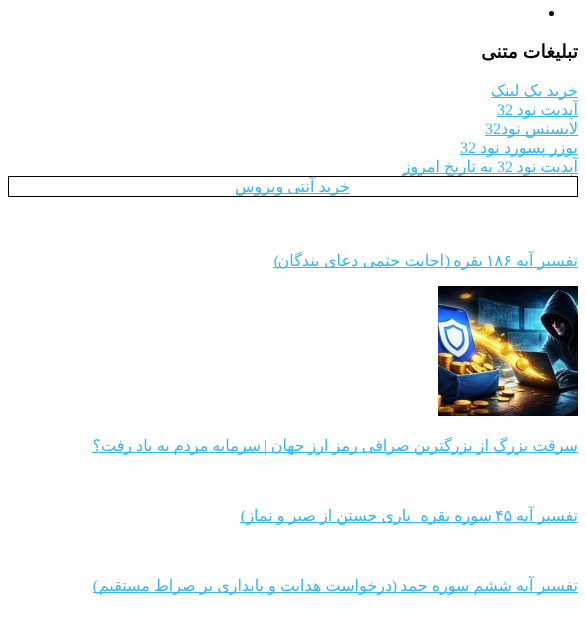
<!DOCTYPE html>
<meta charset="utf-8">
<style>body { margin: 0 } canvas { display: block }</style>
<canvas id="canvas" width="586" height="631"></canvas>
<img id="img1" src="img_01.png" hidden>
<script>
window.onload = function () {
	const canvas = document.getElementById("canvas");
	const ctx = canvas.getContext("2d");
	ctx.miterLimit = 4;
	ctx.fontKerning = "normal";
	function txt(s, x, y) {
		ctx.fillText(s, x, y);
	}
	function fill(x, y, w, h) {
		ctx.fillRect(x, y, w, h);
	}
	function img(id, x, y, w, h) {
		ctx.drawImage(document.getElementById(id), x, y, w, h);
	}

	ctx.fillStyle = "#FFFFFF";
	fill(0, 0, 586, 631);
	ctx.fillStyle = "#000000";
	ctx.beginPath();
	ctx.arc(551.5, 13.5, 2.5, 0, Math.PI * 2);
	ctx.fill();
	ctx.fillStyle = "#38B7EE";
	fill(491, 97, 87, 1);
	fill(497, 116, 81, 1);
	fill(485, 135, 93, 1);
	fill(460, 154, 118, 1);
	fill(403, 173, 175, 1);
	ctx.strokeStyle = "#000000";
	ctx.strokeRect(8.5, 176.5, 569, 20);
	fill(236, 193, 114, 1);
	fill(273, 267, 305, 1);
	img("img1", 438, 286, 140, 130);
	fill(92, 452, 486, 1);
	fill(240, 522, 338, 1);
	fill(93, 592, 485, 1);
	ctx.wordSpacing = "-1px";
	ctx.direction = "rtl";
	ctx.font = "bold 18.75px DejaVu Sans";
	ctx.fillStyle = "#000000";
	txt("تبلیغات متنی", 578, 58);
	ctx.font = "16px DejaVu Sans";
	ctx.fillStyle = "#38B7EE";
	txt("خرید بک لینک", 578, 96);
	txt("آپدیت نود", 578, 115);
	ctx.wordSpacing = "0px";
	ctx.direction = "ltr";
	ctx.font = "16px Liberation Serif";
	txt("32", 497, 115);
	ctx.wordSpacing = "-1px";
	ctx.direction = "rtl";
	ctx.font = "16px DejaVu Sans";
	txt("لایسنس نود", 578, 134);
	ctx.wordSpacing = "0px";
	ctx.direction = "ltr";
	ctx.font = "16px Liberation Serif";
	txt("32", 485, 134);
	ctx.wordSpacing = "-1px";
	ctx.direction = "rtl";
	ctx.font = "16px DejaVu Sans";
	txt("یوزر پسورد نود", 578, 153);
	ctx.wordSpacing = "0px";
	ctx.direction = "ltr";
	ctx.font = "16px Liberation Serif";
	txt("32", 460, 153);
	ctx.wordSpacing = "-1px";
	ctx.direction = "rtl";
	ctx.font = "16px DejaVu Sans";
	txt("آپدیت نود", 578, 172);
	ctx.wordSpacing = "0px";
	ctx.direction = "ltr";
	ctx.font = "16px Liberation Serif";
	txt("32", 497, 172);
	ctx.wordSpacing = "-1px";
	ctx.direction = "rtl";
	ctx.font = "16px DejaVu Sans";
	txt("به تاریخ امروز", 493, 172);
	txt("خرید آنتی ویروس", 350, 192);
	txt("تفسیر آیه", 578, 266);
	ctx.wordSpacing = "0px";
	ctx.direction = "ltr";
	txt("۱۸۶", 486, 266);
	ctx.direction = "rtl";
	txt("بقره", 483, 266);
	ctx.font = "16px Liberation Serif";
	txt("(", 450, 266);
	ctx.wordSpacing = "-0.5px";
	ctx.font = "16px DejaVu Sans";
	txt("اجابت حتمی دعای بندگان", 444, 266);
	ctx.wordSpacing = "0px";
	ctx.font = "16px Liberation Serif";
	txt(")", 279, 266);
	ctx.wordSpacing = "-1px";
	ctx.font = "16px DejaVu Sans";
	txt("سرقت بزرگ از بزرگترین صرافی رمز ارز جهان", 578, 451);
	ctx.wordSpacing = "0px";
	ctx.font = "16px Liberation Serif";
	txt("|", 267, 451);
	ctx.wordSpacing = "-1px";
	ctx.font = "16px DejaVu Sans";
	txt("سرمایه مردم به باد رفت؟", 261, 451);
	txt("تفسیر آیه", 578, 521);
	ctx.wordSpacing = "0px";
	ctx.direction = "ltr";
	txt("۴۵", 495, 521);
	ctx.wordSpacing = "-1px";
	ctx.direction = "rtl";
	txt("سوره بقره", 492, 521);
	ctx.wordSpacing = "0px";
	ctx.font = "16px Liberation Serif";
	txt(")", 246, 521);
	ctx.wordSpacing = "-1px";
	ctx.font = "16px DejaVu Sans";
	txt("یاری جستن از صبر و نماز", 411, 521);
	txt("تفسیر آیه ششم سوره حمد", 578, 591);
	txt("درخواست هدایت و پایداری بر صراط مستقیم", 392, 591);
	ctx.wordSpacing = "0px";
	ctx.font = "16px Liberation Serif";
	txt(")", 98, 591);
	txt("(", 397, 591);
};
</script>
